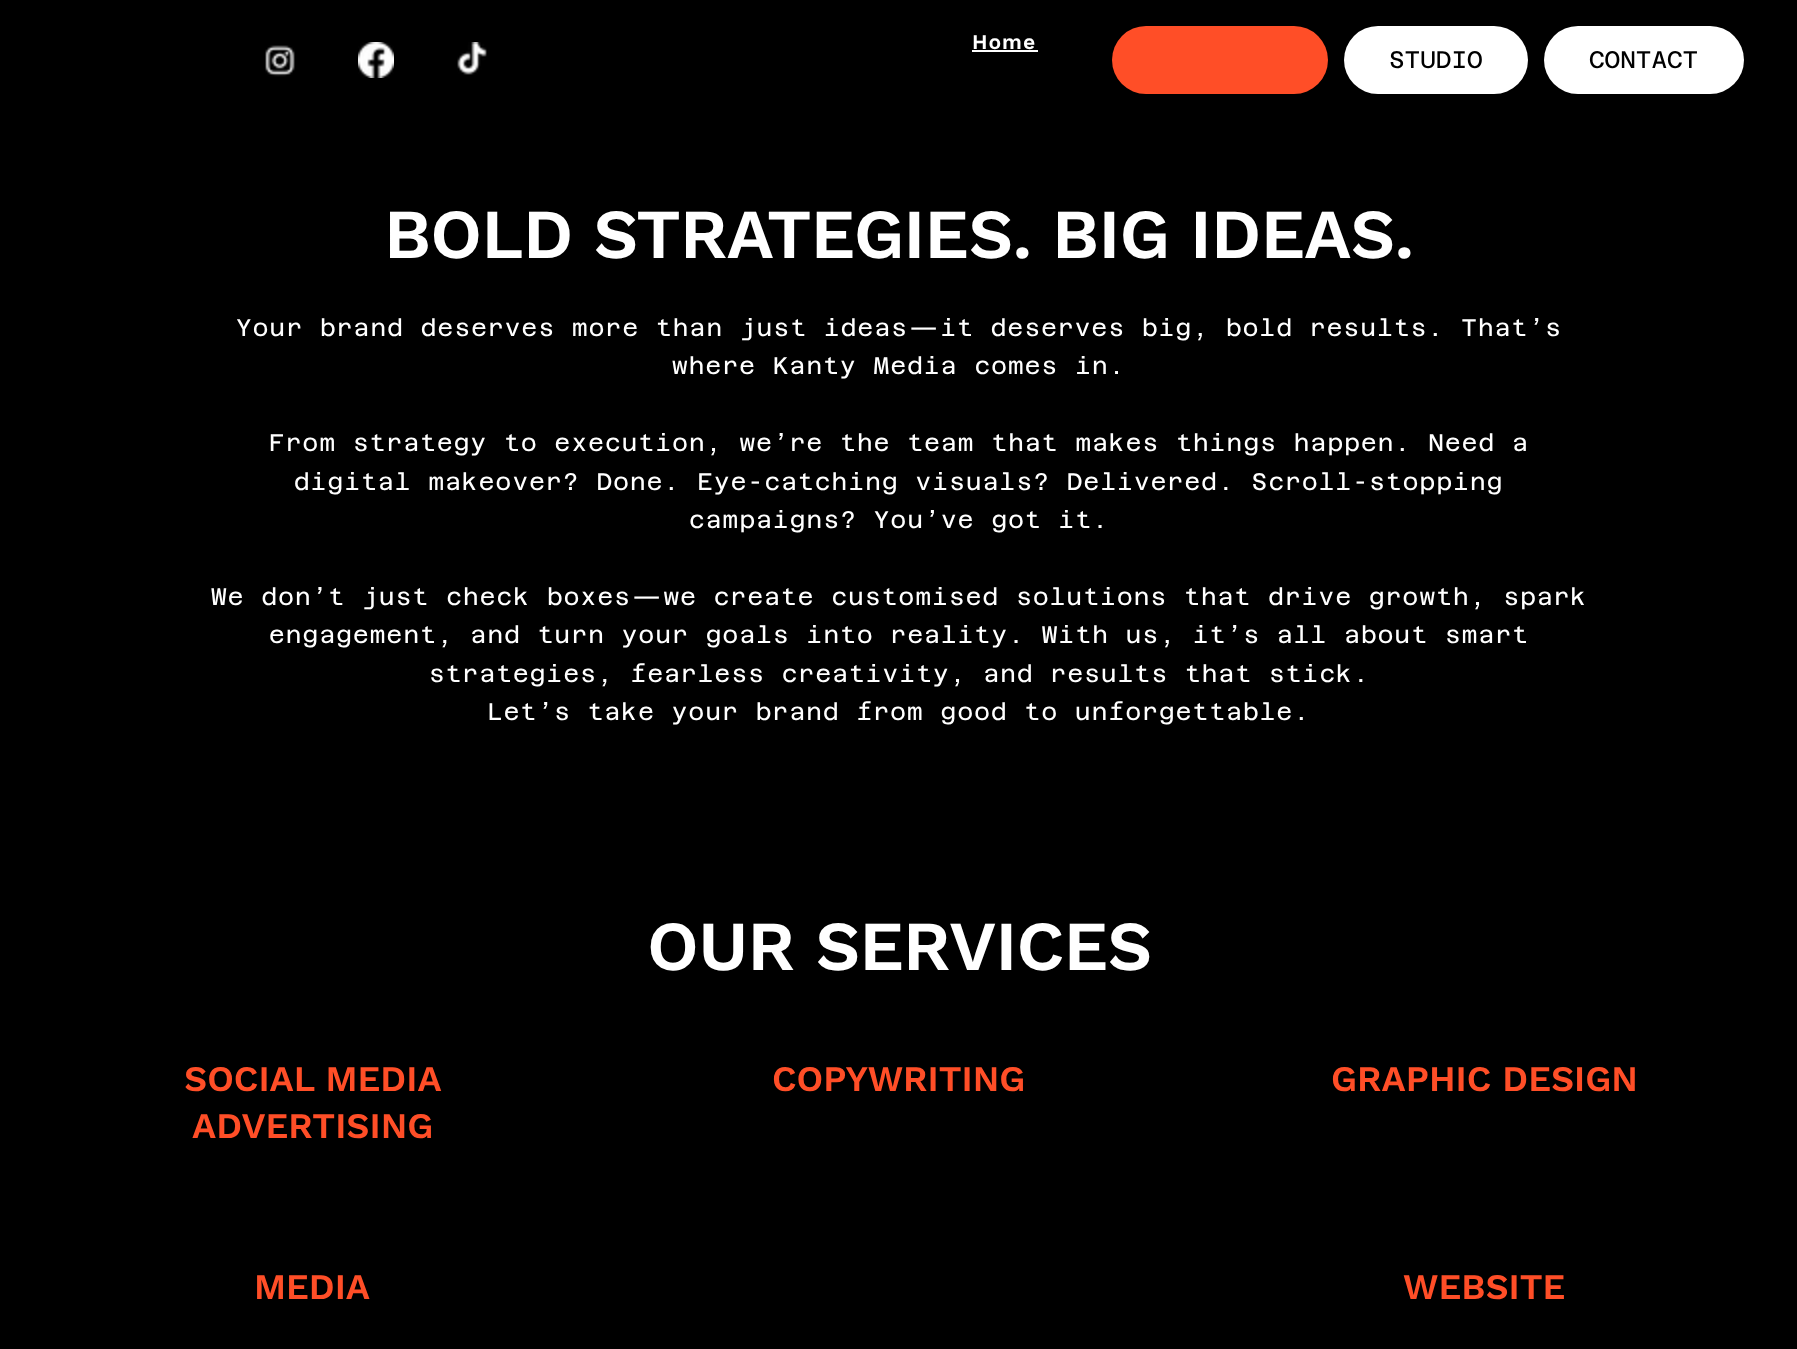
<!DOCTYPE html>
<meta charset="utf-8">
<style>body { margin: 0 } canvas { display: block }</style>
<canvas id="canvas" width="1797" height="1349"></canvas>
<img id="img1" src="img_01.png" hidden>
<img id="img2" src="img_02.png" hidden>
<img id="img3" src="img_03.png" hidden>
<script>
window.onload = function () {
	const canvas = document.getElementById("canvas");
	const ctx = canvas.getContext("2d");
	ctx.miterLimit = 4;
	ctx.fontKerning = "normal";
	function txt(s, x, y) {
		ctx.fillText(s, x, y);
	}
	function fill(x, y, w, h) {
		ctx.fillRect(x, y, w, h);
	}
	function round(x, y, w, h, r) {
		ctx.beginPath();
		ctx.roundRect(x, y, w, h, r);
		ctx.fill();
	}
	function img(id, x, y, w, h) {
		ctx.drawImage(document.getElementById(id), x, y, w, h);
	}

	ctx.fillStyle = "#000000";
	fill(0, 0, 1797, 1349);
	img("img1", 265, 45, 30, 32);
	img("img2", 358, 42, 36, 36);
	img("img3", 457, 42, 30, 33);
	ctx.fillStyle = "#FFFFFF";
	fill(972, 50, 66, 2);
	ctx.fillStyle = "#FF4E27";
	round(1112, 26, 216, 68, 34);
	ctx.fillStyle = "#FFFFFF";
	round(1344, 26, 184, 68, 34);
	round(1544, 26, 200, 68, 34);
	ctx.letterSpacing = "1px";
	ctx.font = "600 21px Work Sans";
	txt("Home", 972, 49);
	ctx.letterSpacing = "0px";
	ctx.font = "24px Azeret Mono";
	ctx.fillStyle = "#000000";
	txt("STUDIO", 1389, 68);
	txt("CONTACT", 1589, 68);
	ctx.letterSpacing = "-0.7px";
	ctx.font = "600 70px Work Sans";
	ctx.fillStyle = "#FFFFFF";
	txt("BOLD STRATEGIES. BIG IDEAS.", 384, 258);
	ctx.letterSpacing = "1.2px";
	ctx.font = "24px Azeret Mono";
	txt("Your brand deserves more than just ideas—it deserves big, bold results. That’s", 236, 336);
	txt("where Kanty Media comes in.", 672, 374);
	txt("From strategy to execution, we’re the team that makes things happen. Need a", 269, 451);
	txt("digital makeover? Done. Eye-catching visuals? Delivered. Scroll-stopping", 294, 490);
	txt("campaigns? You’ve got it.", 689, 528);
	txt("We don’t just check boxes—we create customised solutions that drive growth, spark", 211, 605);
	txt("engagement, and turn your goals into reality. With us, it’s all about smart", 269, 643);
	txt("strategies, fearless creativity, and results that stick.", 429, 682);
	txt("Let’s take your brand from good to unforgettable.", 487, 720);
	ctx.letterSpacing = "-0.7px";
	ctx.font = "600 70px Work Sans";
	txt("OUR SERVICES", 647, 970);
	ctx.letterSpacing = "0px";
	ctx.font = "600 36px Work Sans";
	ctx.fillStyle = "#FF4E27";
	txt("SOCIAL MEDIA", 184, 1091);
	txt("ADVERTISING", 192, 1138);
	txt("COPYWRITING", 772, 1091);
	txt("GRAPHIC DESIGN", 1331, 1091);
	txt("MEDIA", 254, 1299);
	txt("WEBSITE", 1403, 1299);
};
</script>
